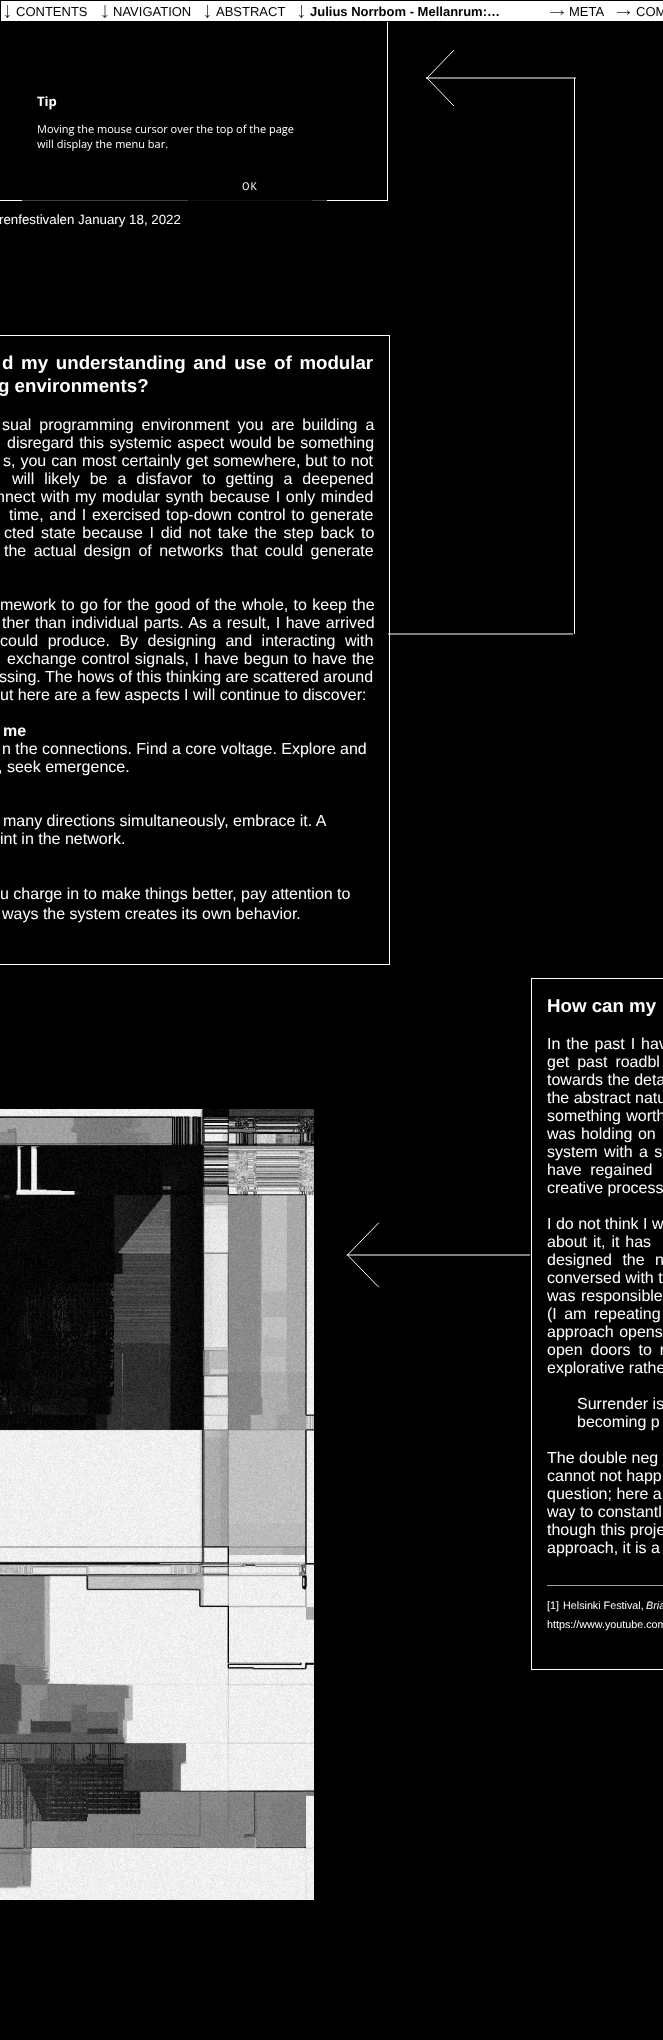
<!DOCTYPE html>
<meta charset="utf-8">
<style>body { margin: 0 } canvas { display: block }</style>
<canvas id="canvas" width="663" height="2040"></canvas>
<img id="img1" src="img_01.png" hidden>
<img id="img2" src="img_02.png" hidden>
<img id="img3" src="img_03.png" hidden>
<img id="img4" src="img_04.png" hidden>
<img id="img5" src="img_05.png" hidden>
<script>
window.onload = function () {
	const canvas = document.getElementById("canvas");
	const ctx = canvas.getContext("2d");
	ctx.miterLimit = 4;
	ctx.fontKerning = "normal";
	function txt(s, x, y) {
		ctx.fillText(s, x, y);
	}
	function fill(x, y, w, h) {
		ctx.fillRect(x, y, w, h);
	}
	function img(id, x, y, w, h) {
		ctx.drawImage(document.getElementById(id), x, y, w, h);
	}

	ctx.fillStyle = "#000000";
	fill(0, 0, 663, 2040);
	ctx.strokeStyle = "#FFFFFF";
	ctx.strokeRect(-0.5, -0.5, 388, 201);
	ctx.fillStyle = "#FFFFFF";
	ctx.beginPath();
	ctx.rect(0.5, 0.5, 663, 21);
	ctx.fill();
	ctx.strokeStyle = "#000000";
	ctx.stroke();
	img("img1", 4, 5, 6, 14);
	img("img2", 101, 5, 7, 14);
	img("img1", 204, 5, 6, 14);
	img("img1", 298, 5, 6, 14);
	img("img3", 550, 10, 15, 6);
	img("img4", 617, 10, 14, 6);
	ctx.fillStyle = "rgba(0, 0, 0, 0.75)";
	fill(22, 200, 305, 1);
	fill(188, 200, 124, 1);
	ctx.beginPath();
	ctx.moveTo(426.5, 77.5);
	ctx.lineTo(454, 106);
	ctx.strokeStyle = "#FFFFFF";
	ctx.stroke();
	ctx.fillStyle = "#FFFFFF";
	fill(574, 78, 1, 556);
	ctx.beginPath();
	ctx.moveTo(426, 78);
	ctx.lineTo(576, 78);
	ctx.stroke();
	ctx.beginPath();
	ctx.moveTo(426.5, 78.5);
	ctx.lineTo(454, 50);
	ctx.stroke();
	ctx.strokeRect(-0.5, 335.5, 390, 629);
	ctx.beginPath();
	ctx.moveTo(388, 634);
	ctx.lineTo(573, 634);
	ctx.stroke();
	img("img5", 0, 1109, 314, 791);
	ctx.save();
	ctx.beginPath();
	ctx.moveTo(346.5, 1287.5);
	ctx.lineTo(346.5, 1222.5);
	ctx.lineTo(530.5, 1222.5);
	ctx.lineTo(530.5, 1287.5);
	ctx.closePath();
	ctx.clip();
	ctx.beginPath();
	ctx.moveTo(347, 1254.5);
	ctx.lineTo(379, 1287.5);
	ctx.stroke();
	ctx.restore();
	ctx.save();
	ctx.beginPath();
	ctx.moveTo(346.5, 1287.5);
	ctx.lineTo(346.5, 1222.5);
	ctx.lineTo(530.5, 1222.5);
	ctx.lineTo(530.5, 1287.5);
	ctx.closePath();
	ctx.clip();
	ctx.beginPath();
	ctx.moveTo(346.5, 1287.5);
	ctx.lineTo(346.5, 1222.5);
	ctx.lineTo(530.5, 1222.5);
	ctx.lineTo(530.5, 1287.5);
	ctx.closePath();
	ctx.clip();
	ctx.beginPath();
	ctx.moveTo(346.5, 1255);
	ctx.lineTo(530.5, 1255);
	ctx.stroke();
	ctx.restore();
	ctx.save();
	ctx.beginPath();
	ctx.moveTo(346.5, 1287.5);
	ctx.lineTo(346.5, 1222.5);
	ctx.lineTo(530.5, 1222.5);
	ctx.lineTo(530.5, 1287.5);
	ctx.closePath();
	ctx.clip();
	ctx.beginPath();
	ctx.moveTo(347, 1255.5);
	ctx.lineTo(379, 1222.5);
	ctx.stroke();
	ctx.restore();
	ctx.strokeRect(531.5, 978.5, 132, 691);
	ctx.fillStyle = "#9F9F9F";
	fill(547, 1585, 116, 1);
	ctx.font = "13px Liberation Sans";
	ctx.fillStyle = "#000000";
	txt("CONTENTS", 16, 16);
	txt("NAVIGATION", 113, 16);
	txt("ABSTRACT", 216, 16);
	ctx.font = "bold 13px Liberation Sans";
	txt("Julius Norrbom - Mellanrum:…", 310, 16);
	ctx.font = "13px Liberation Sans";
	txt("META", 569, 16);
	txt("COM", 636, 16);
	ctx.font = "bold 13px Open Sans";
	ctx.fillStyle = "#FFFFFF";
	txt("Tip", 37, 106);
	ctx.font = "11px Open Sans";
	txt("Moving the mouse cursor over the top of the page", 37, 133);
	txt("will display the menu bar.", 37, 148);
	ctx.letterSpacing = "1px";
	ctx.font = "11px PT Sans";
	txt("OK", 242, 190);
	ctx.letterSpacing = "0px";
	ctx.font = "13.3px Liberation Sans";
	txt("renfestivalen January 18, 2022", -1, 224);
	ctx.wordSpacing = "2.5px";
	ctx.font = "bold 18.7px Liberation Sans";
	txt("d my understanding and use of modular", 2, 369);
	ctx.wordSpacing = "0px";
	txt("g environments?", -2, 392);
	ctx.wordSpacing = "3.5px";
	ctx.font = "16px Liberation Sans";
	txt("sual programming environment you are building a", 2, 430);
	ctx.wordSpacing = "1px";
	txt("disregard this systemic aspect would be something", 7, 448);
	ctx.wordSpacing = "0.5px";
	txt("s, you can most certainly get somewhere, but to not", 3, 466);
	ctx.wordSpacing = "5.5px";
	txt("will likely be a disfavor to getting a deepened", 12, 484);
	ctx.wordSpacing = "1.25px";
	txt("nnect with my modular synth because I only minded", -4, 502);
	txt("time, and I exercised top-down control to generate", 9, 520);
	ctx.wordSpacing = "2.25px";
	txt("cted state because I did not take the step back to", 4, 538);
	ctx.wordSpacing = "3px";
	txt("the actual design of networks that could generate", 4, 556);
	ctx.wordSpacing = "0.9px";
	txt("mework to go for the good of the whole, to keep the", 0, 610);
	ctx.wordSpacing = "1px";
	txt("ther than individual parts. As a result, I have arrived", 2, 628);
	ctx.wordSpacing = "5px";
	txt("could produce. By designing and interacting with", 0, 646);
	ctx.wordSpacing = "0.75px";
	txt("exchange control signals, I have begun to have the", 7, 664);
	ctx.wordSpacing = "0px";
	txt("ssing. The hows of this thinking are scattered around", -1, 682);
	txt("ut here are a few aspects I will continue to discover:", 0, 700);
	ctx.font = "bold 16px Liberation Sans";
	txt("me", 3, 736);
	ctx.font = "16px Liberation Sans";
	txt("n the connections. Find a core voltage. Explore and", 2, 754);
	txt(", seek emergence.", -2, 772);
	txt("many directions simultaneously, embrace it. A", 3, 826);
	txt("int in the network.", 0, 844);
	txt("u charge in to make things better, pay attention to", 0, 899);
	txt("ways the system creates its own behavior.", 2, 919);
	ctx.font = "bold 18.7px Liberation Sans";
	txt("How can my", 547, 1012);
	ctx.wordSpacing = "1.5px";
	ctx.font = "16px Liberation Sans";
	txt("In the past I hav", 547, 1049);
	ctx.wordSpacing = "3.5px";
	txt("get past roadbl", 547, 1067);
	ctx.wordSpacing = "0px";
	txt("towards the deta", 547, 1085);
	txt("the abstract natu", 547, 1103);
	ctx.wordSpacing = "1px";
	txt("something worth", 547, 1121);
	txt("was holding on", 547, 1139);
	ctx.wordSpacing = "2px";
	txt("system with a s", 547, 1157);
	ctx.wordSpacing = "4px";
	txt("have regained", 547, 1175);
	ctx.wordSpacing = "0px";
	txt("creative process", 547, 1193);
	txt("I do not think I w", 547, 1229);
	ctx.wordSpacing = "1.5px";
	txt("about it, it has", 547, 1247);
	ctx.wordSpacing = "6px";
	txt("designed the n", 547, 1265);
	ctx.wordSpacing = "0px";
	txt("conversed with t", 547, 1283);
	ctx.wordSpacing = "1px";
	txt("was responsible", 547, 1301);
	ctx.wordSpacing = "3px";
	txt("(I am repeating", 547, 1319);
	ctx.wordSpacing = "1px";
	txt("approach opens", 547, 1337);
	ctx.wordSpacing = "3.5px";
	txt("open doors to r", 547, 1355);
	ctx.wordSpacing = "0px";
	txt("explorative rathe", 547, 1373);
	txt("Surrender is", 577, 1409);
	txt("becoming p", 577, 1427);
	txt("The double neg", 547, 1463);
	txt("cannot not happ", 547, 1481);
	txt("question; here a", 547, 1499);
	txt("way to constantl", 547, 1517);
	txt("though this proje", 547, 1535);
	txt("approach, it is a", 547, 1553);
	ctx.font = "10.75px Liberation Sans";
	txt("[1]", 547, 1609);
	txt("Helsinki Festival,", 563, 1609);
	ctx.font = "italic 10.75px Liberation Sans";
	txt("Bria", 646, 1609);
	ctx.font = "10.75px Liberation Sans";
	txt("https://www.youtube.com", 547, 1628);
};
</script>
